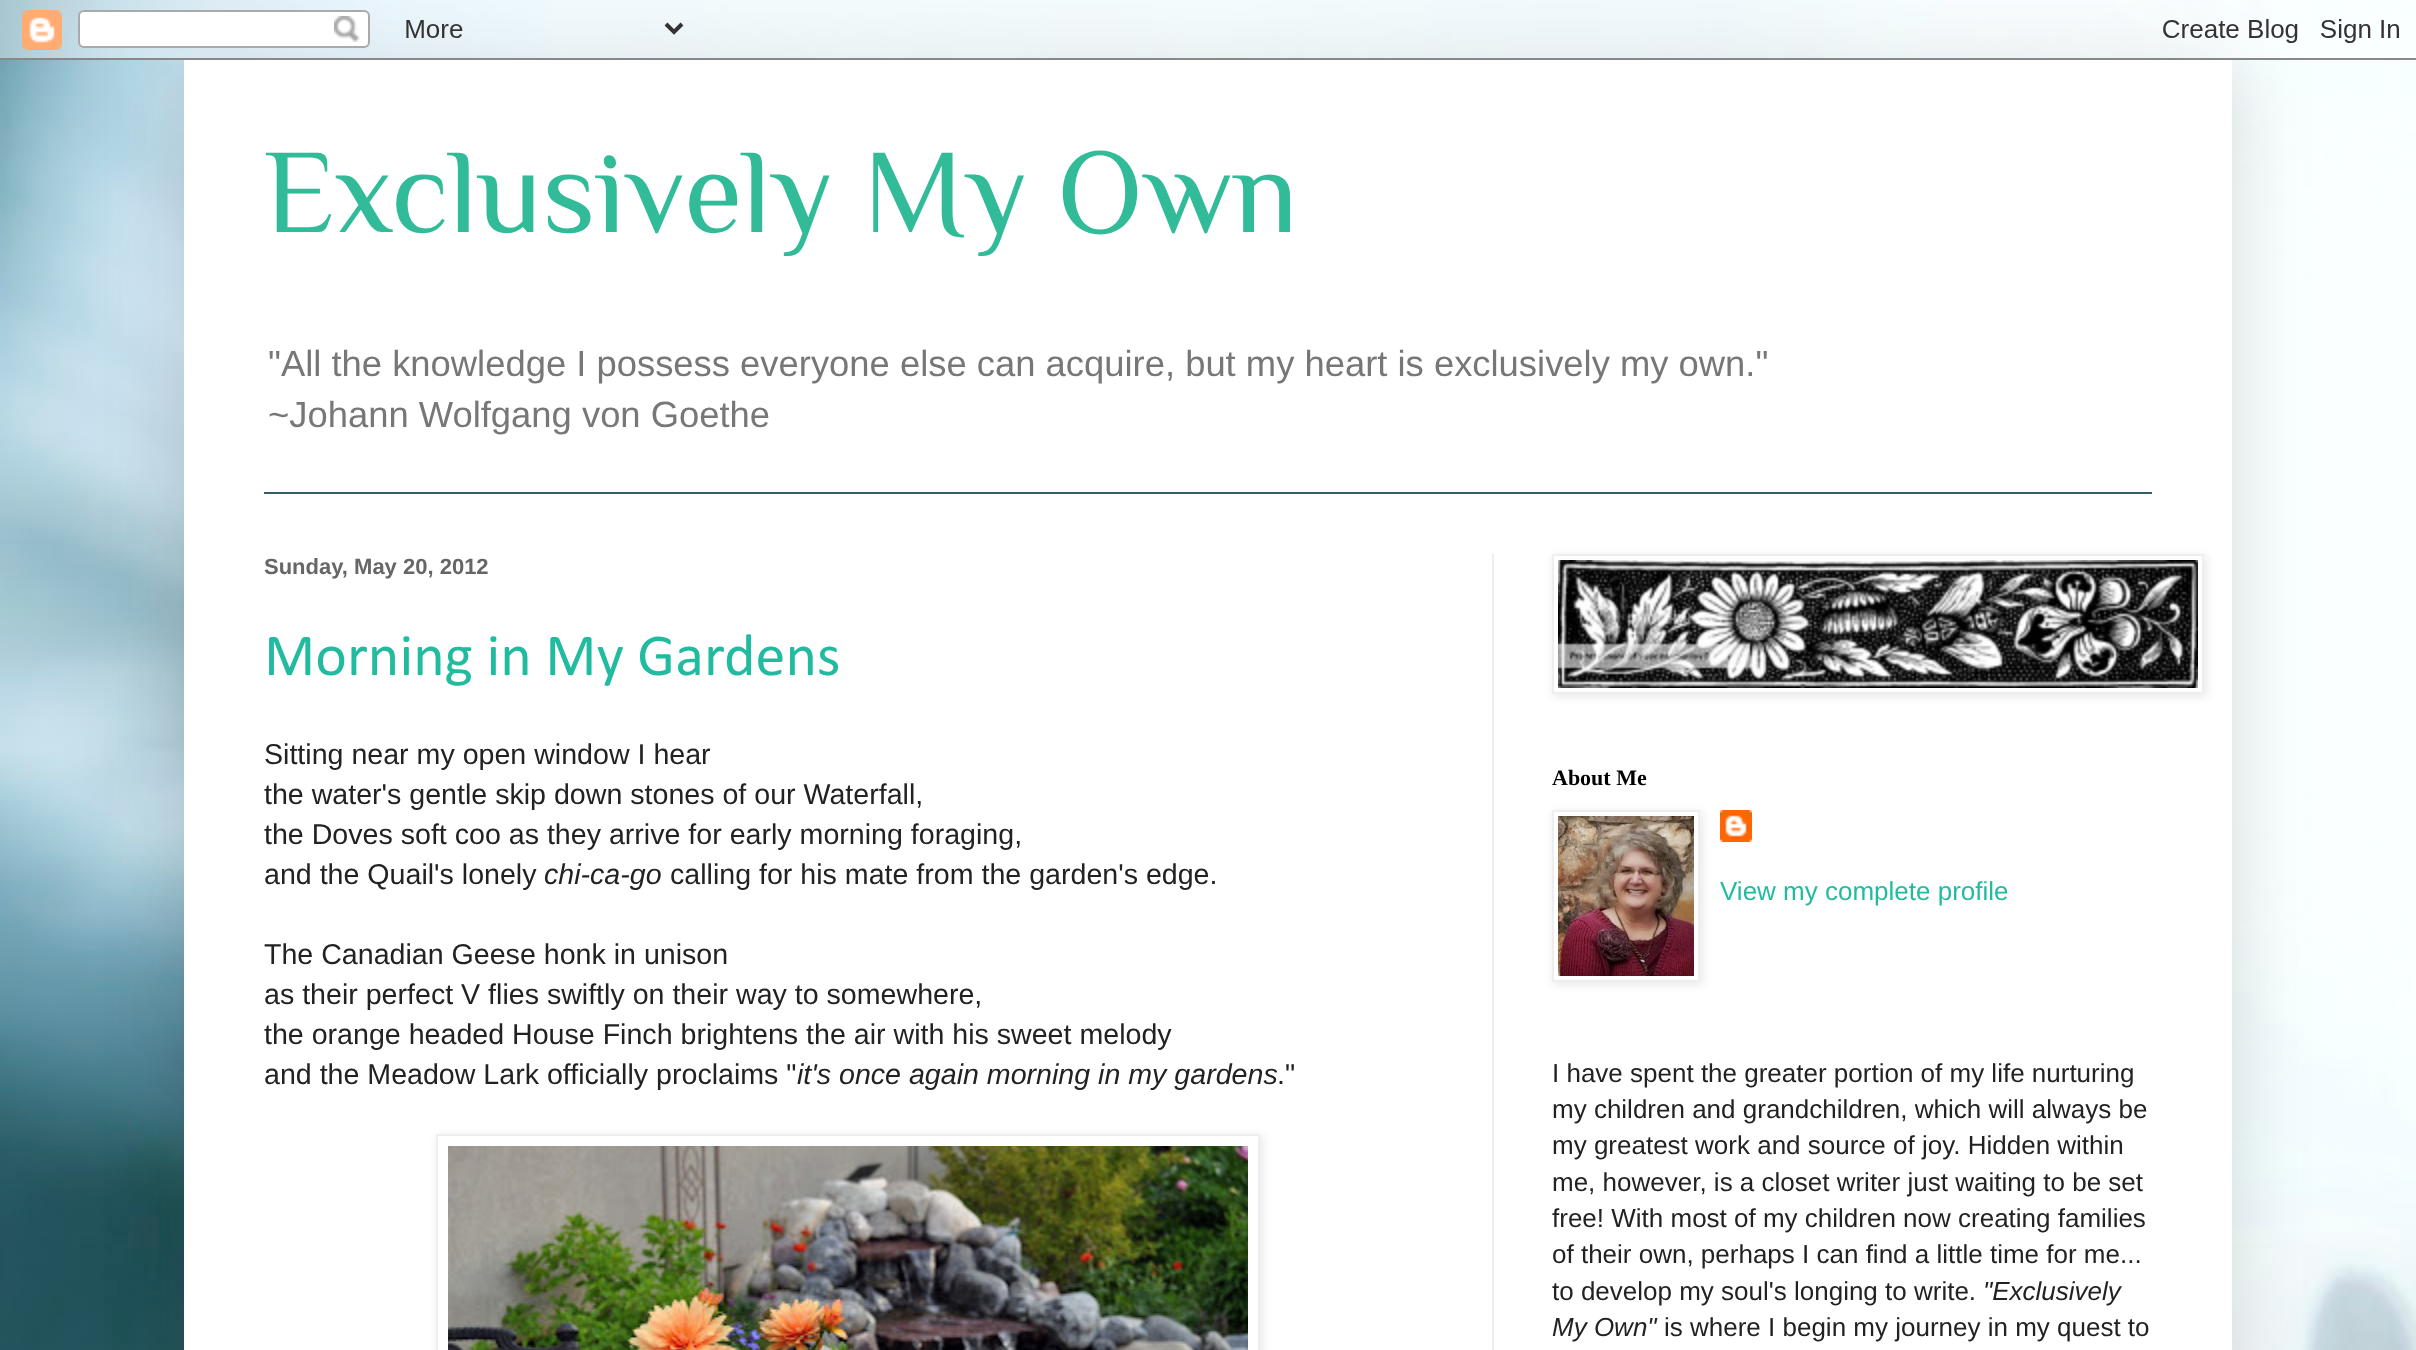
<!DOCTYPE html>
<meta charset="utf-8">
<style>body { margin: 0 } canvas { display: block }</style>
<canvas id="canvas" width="2416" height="1350"></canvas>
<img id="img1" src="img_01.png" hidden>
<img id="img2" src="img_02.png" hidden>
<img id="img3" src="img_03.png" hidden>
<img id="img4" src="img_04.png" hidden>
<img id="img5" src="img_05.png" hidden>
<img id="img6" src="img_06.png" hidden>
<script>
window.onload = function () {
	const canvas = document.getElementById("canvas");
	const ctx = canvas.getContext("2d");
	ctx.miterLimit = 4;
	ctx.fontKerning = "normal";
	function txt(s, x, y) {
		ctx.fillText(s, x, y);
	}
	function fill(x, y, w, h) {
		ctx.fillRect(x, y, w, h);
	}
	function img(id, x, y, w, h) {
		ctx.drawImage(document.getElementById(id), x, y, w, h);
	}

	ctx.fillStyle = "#FFFFFF";
	fill(0, 0, 2416, 1350);
	img("img1", 0, 0, 2416, 1350);
	ctx.fillStyle = "rgba(0, 0, 0, 0.15)";
	ctx.filter = "blur(40px)";
	ctx.beginPath();
	ctx.rect(184, 60, 2048, 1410);
	ctx.fill();
	ctx.filter = "none";
	img("img2", 0, 0, 2416, 60);
	ctx.fillStyle = "#FFFFFF";
	fill(184, 60, 2048, 1290);
	ctx.fillStyle = "#335D6E";
	fill(264, 492, 1888, 2);
	ctx.fillStyle = "#EEEEEE";
	fill(1492, 554, 2, 796);
	ctx.save();
	ctx.beginPath();
	ctx.moveTo(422, 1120);
	ctx.lineTo(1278, 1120);
	ctx.lineTo(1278, 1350);
	ctx.lineTo(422, 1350);
	ctx.closePath();
	ctx.moveTo(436, 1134);
	ctx.lineTo(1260, 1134);
	ctx.lineTo(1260, 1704);
	ctx.lineTo(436, 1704);
	ctx.closePath();
	ctx.clip("evenodd");
	ctx.fillStyle = "rgba(0, 0, 0, 0.1)";
	ctx.filter = "blur(5px)";
	ctx.beginPath();
	ctx.rect(438, 1136, 824, 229);
	ctx.fill();
	ctx.filter = "none";
	ctx.restore();
	ctx.strokeStyle = "#EEEEEE";
	ctx.lineWidth = 2;
	ctx.strokeRect(437, 1135, 822, 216);
	img("img3", 448, 1146, 800, 204);
	ctx.save();
	ctx.beginPath();
	ctx.moveTo(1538, 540);
	ctx.lineTo(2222, 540);
	ctx.lineTo(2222, 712);
	ctx.lineTo(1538, 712);
	ctx.closePath();
	ctx.moveTo(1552, 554);
	ctx.lineTo(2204, 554);
	ctx.lineTo(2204, 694);
	ctx.lineTo(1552, 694);
	ctx.closePath();
	ctx.clip("evenodd");
	ctx.fillStyle = "rgba(0, 0, 0, 0.1)";
	ctx.filter = "blur(5px)";
	ctx.beginPath();
	ctx.rect(1554, 556, 652, 140);
	ctx.fill();
	ctx.filter = "none";
	ctx.restore();
	ctx.strokeRect(1553, 555, 650, 138);
	img("img4", 1558, 560, 640, 128);
	ctx.save();
	ctx.beginPath();
	ctx.moveTo(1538, 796);
	ctx.lineTo(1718, 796);
	ctx.lineTo(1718, 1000);
	ctx.lineTo(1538, 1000);
	ctx.closePath();
	ctx.moveTo(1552, 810);
	ctx.lineTo(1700, 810);
	ctx.lineTo(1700, 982);
	ctx.lineTo(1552, 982);
	ctx.closePath();
	ctx.clip("evenodd");
	ctx.fillStyle = "rgba(0, 0, 0, 0.1)";
	ctx.filter = "blur(5px)";
	ctx.beginPath();
	ctx.rect(1554, 812, 148, 172);
	ctx.fill();
	ctx.filter = "none";
	ctx.restore();
	ctx.strokeRect(1553, 811, 146, 170);
	img("img5", 1558, 816, 136, 160);
	img("img6", 1720, 810, 32, 32);
	ctx.font = "120px Philosopher";
	ctx.fillStyle = "#32BB98";
	txt("Exclusively My Own", 264, 232);
	ctx.font = "36.4px Liberation Sans";
	ctx.fillStyle = "#777777";
	txt("\"All the knowledge I possess everyone else can acquire, but my heart is exclusively my own.\"", 268, 376);
	txt("~Johann Wolfgang von Goethe", 268, 427);
	ctx.font = "bold 22px Liberation Sans";
	ctx.fillStyle = "#666666";
	txt("Sunday, May 20, 2012", 264, 574);
	ctx.font = "60px Calibri";
	ctx.fillStyle = "#21BBA0";
	txt("Morning in My Gardens", 264, 675);
	ctx.font = "28.6px Liberation Sans";
	ctx.fillStyle = "#222222";
	txt("Sitting near my open window I hear", 264, 764);
	txt("the water's gentle skip down stones of our Waterfall,", 264, 804);
	txt("the Doves soft coo as they arrive for early morning foraging,", 264, 844);
	txt("and the Quail's lonely", 264, 884);
	ctx.font = "italic 28.6px Liberation Sans";
	txt("chi-ca-go", 544, 884);
	ctx.font = "28.6px Liberation Sans";
	txt("calling for his mate from the garden's edge.", 670, 884);
	txt("The Canadian Geese honk in unison", 264, 964);
	txt("as their perfect V flies swiftly on their way to somewhere,", 264, 1004);
	txt("the orange headed House Finch brightens the air with his sweet melody", 264, 1044);
	txt("and the Meadow Lark officially proclaims \"", 264, 1084);
	ctx.font = "italic 28.6px Liberation Sans";
	txt("it's once again morning in my gardens", 797, 1084);
	ctx.font = "28.6px Liberation Sans";
	txt(".\"", 1277, 1084);
	ctx.font = "bold 22px Liberation Serif";
	ctx.fillStyle = "#000000";
	txt("About Me", 1552, 785);
	ctx.font = "26px Liberation Sans";
	ctx.fillStyle = "#21BBA0";
	txt("View my complete profile", 1720, 900);
	ctx.fillStyle = "#222222";
	txt("I have spent the greater portion of my life nurturing", 1552, 1082);
	txt("my children and grandchildren, which will always be", 1552, 1118);
	txt("my greatest work and source of joy. Hidden within", 1552, 1154);
	txt("me, however, is a closet writer just waiting to be set", 1552, 1191);
	txt("free! With most of my children now creating families", 1552, 1227);
	txt("of their own, perhaps I can find a little time for me...", 1552, 1263);
	txt("to develop my soul's longing to write.", 1552, 1300);
	ctx.font = "italic 26px Liberation Sans";
	txt("\"Exclusively", 1983, 1300);
	txt("My Own\"", 1552, 1336);
	ctx.font = "26px Liberation Sans";
	txt("is where I begin my journey in my quest to", 1664, 1336);
};
</script>
